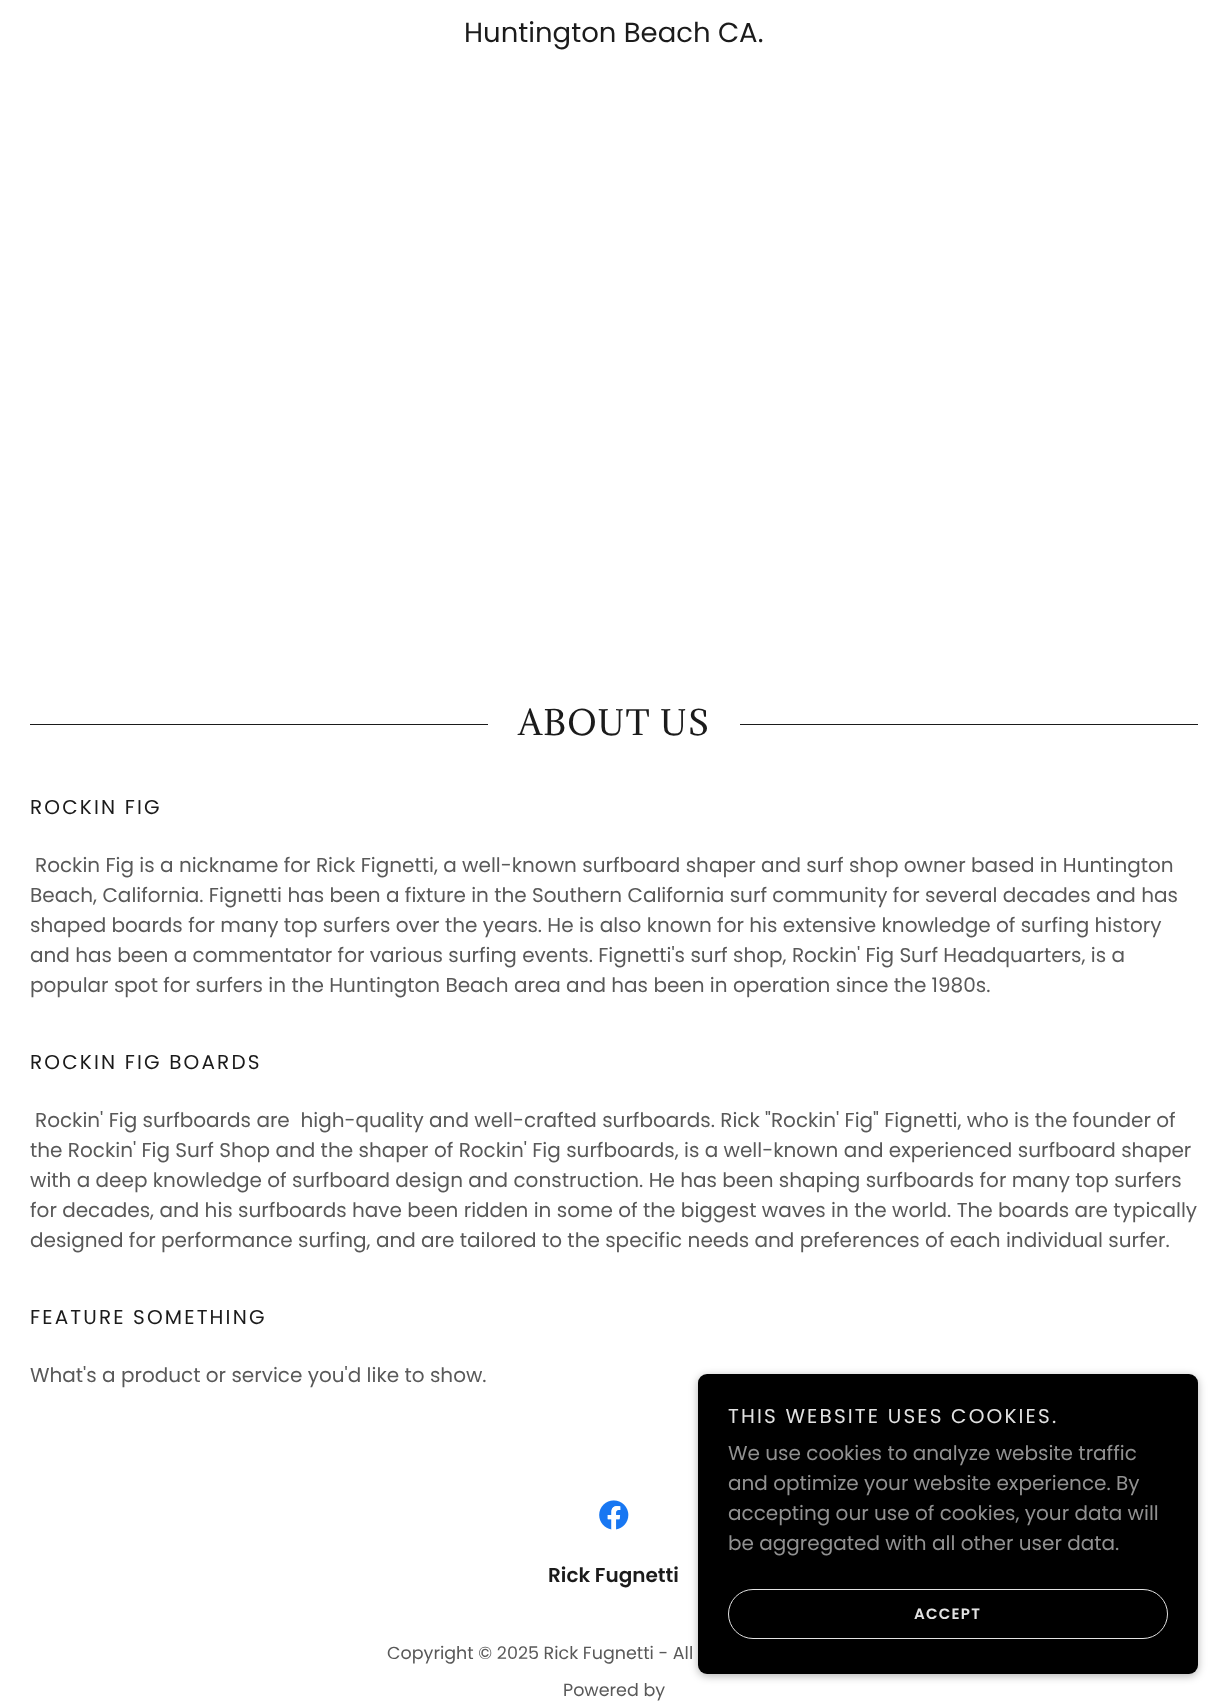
<!DOCTYPE html>
<meta charset="utf-8">
<style>body { margin: 0 } canvas { display: block }</style>
<canvas id="canvas" width="1227" height="1703"></canvas>
<img id="img1" src="img_01.png" hidden>
<script>
window.onload = function () {
	const canvas = document.getElementById("canvas");
	const ctx = canvas.getContext("2d");
	ctx.miterLimit = 4;
	ctx.fontKerning = "normal";
	function txt(s, x, y) {
		ctx.fillText(s, x, y);
	}
	function fill(x, y, w, h) {
		ctx.fillRect(x, y, w, h);
	}
	function round(x, y, w, h, r) {
		ctx.beginPath();
		ctx.roundRect(x, y, w, h, r);
		ctx.fill();
	}
	function img(id, x, y, w, h) {
		ctx.drawImage(document.getElementById(id), x, y, w, h);
	}

	ctx.fillStyle = "#FFFFFF";
	fill(0, 0, 1227, 1703);
	ctx.fillStyle = "#1B1B1B";
	fill(30, 724, 458, 1);
	fill(740, 724, 458, 1);
	ctx.fillStyle = "rgba(0, 0, 0, 0.3)";
	ctx.filter = "blur(4px)";
	ctx.beginPath();
	ctx.roundRect(698, 1376, 500, 300, 9);
	ctx.fill();
	ctx.filter = "none";
	ctx.fillStyle = "#000000";
	round(698, 1374, 500, 300, 9);
	ctx.beginPath();
	ctx.roundRect(728.5, 1589.5, 439, 49, 24.5);
	ctx.strokeStyle = "#E2E2E2";
	ctx.stroke();
	img("img1", 599, 1500, 30, 30);
	ctx.font = "27.5px Poppins";
	ctx.fillStyle = "#1B1B1B";
	txt("Huntington Beach CA.", 464, 42);
	ctx.letterSpacing = "1.25px";
	ctx.font = "32.5px Adamina";
	txt("ABOUT US", 518, 735);
	ctx.letterSpacing = "2.15px";
	ctx.font = "20px Poppins";
	txt("ROCKIN FIG", 30, 814);
	ctx.letterSpacing = "0px";
	ctx.fillStyle = "#595959";
	txt("Rockin Fig is a nickname for Rick Fignetti, a well-known surfboard shaper and surf shop owner based in Huntington", 35, 872);
	txt("Beach, California. Fignetti has been a fixture in the Southern California surf community for several decades and has", 30, 902);
	txt("shaped boards for many top surfers over the years. He is also known for his extensive knowledge of surfing history", 30, 932);
	txt("and has been a commentator for various surfing events. Fignetti's surf shop, Rockin' Fig Surf Headquarters, is a", 30, 962);
	txt("popular spot for surfers in the Huntington Beach area and has been in operation since the 1980s.", 30, 992);
	ctx.letterSpacing = "2.15px";
	ctx.fillStyle = "#1B1B1B";
	txt("ROCKIN FIG BOARDS", 30, 1069);
	ctx.letterSpacing = "0px";
	ctx.fillStyle = "#595959";
	txt("Rockin' Fig surfboards are  high-quality and well-crafted surfboards. Rick \"Rockin' Fig\" Fignetti, who is the founder of", 35, 1127);
	txt("the Rockin' Fig Surf Shop and the shaper of Rockin' Fig surfboards, is a well-known and experienced surfboard shaper", 30, 1157);
	txt("with a deep knowledge of surfboard design and construction. He has been shaping surfboards for many top surfers", 30, 1187);
	txt("for decades, and his surfboards have been ridden in some of the biggest waves in the world. The boards are typically", 30, 1217);
	txt("designed for performance surfing, and are tailored to the specific needs and preferences of each individual surfer.", 30, 1247);
	ctx.letterSpacing = "2.15px";
	ctx.fillStyle = "#1B1B1B";
	txt("FEATURE SOMETHING", 30, 1324);
	ctx.letterSpacing = "0px";
	ctx.fillStyle = "#595959";
	txt("What's a product or service you'd like to show.", 30, 1382);
	ctx.letterSpacing = "2.15px";
	ctx.fillStyle = "#E2E2E2";
	txt("THIS WEBSITE USES COOKIES.", 728, 1423);
	ctx.letterSpacing = "0px";
	ctx.fillStyle = "#919191";
	txt("We use cookies to analyze website traffic", 728, 1460);
	txt("and optimize your website experience. By", 728, 1490);
	txt("accepting our use of cookies, your data will", 728, 1520);
	txt("be aggregated with all other user data.", 728, 1550);
	ctx.letterSpacing = "1.25px";
	ctx.font = "600 15px Poppins";
	ctx.fillStyle = "#E2E2E2";
	txt("ACCEPT", 914, 1619);
	ctx.letterSpacing = "0px";
	ctx.font = "600 20px Poppins";
	ctx.fillStyle = "#1B1B1B";
	txt("Rick Fugnetti", 548, 1582);
	ctx.font = "17.5px Poppins";
	ctx.fillStyle = "#595959";
	txt("Copyright © 2025 Rick Fugnetti - All", 387, 1659);
	txt("Powered by", 563, 1696);
};
</script>
